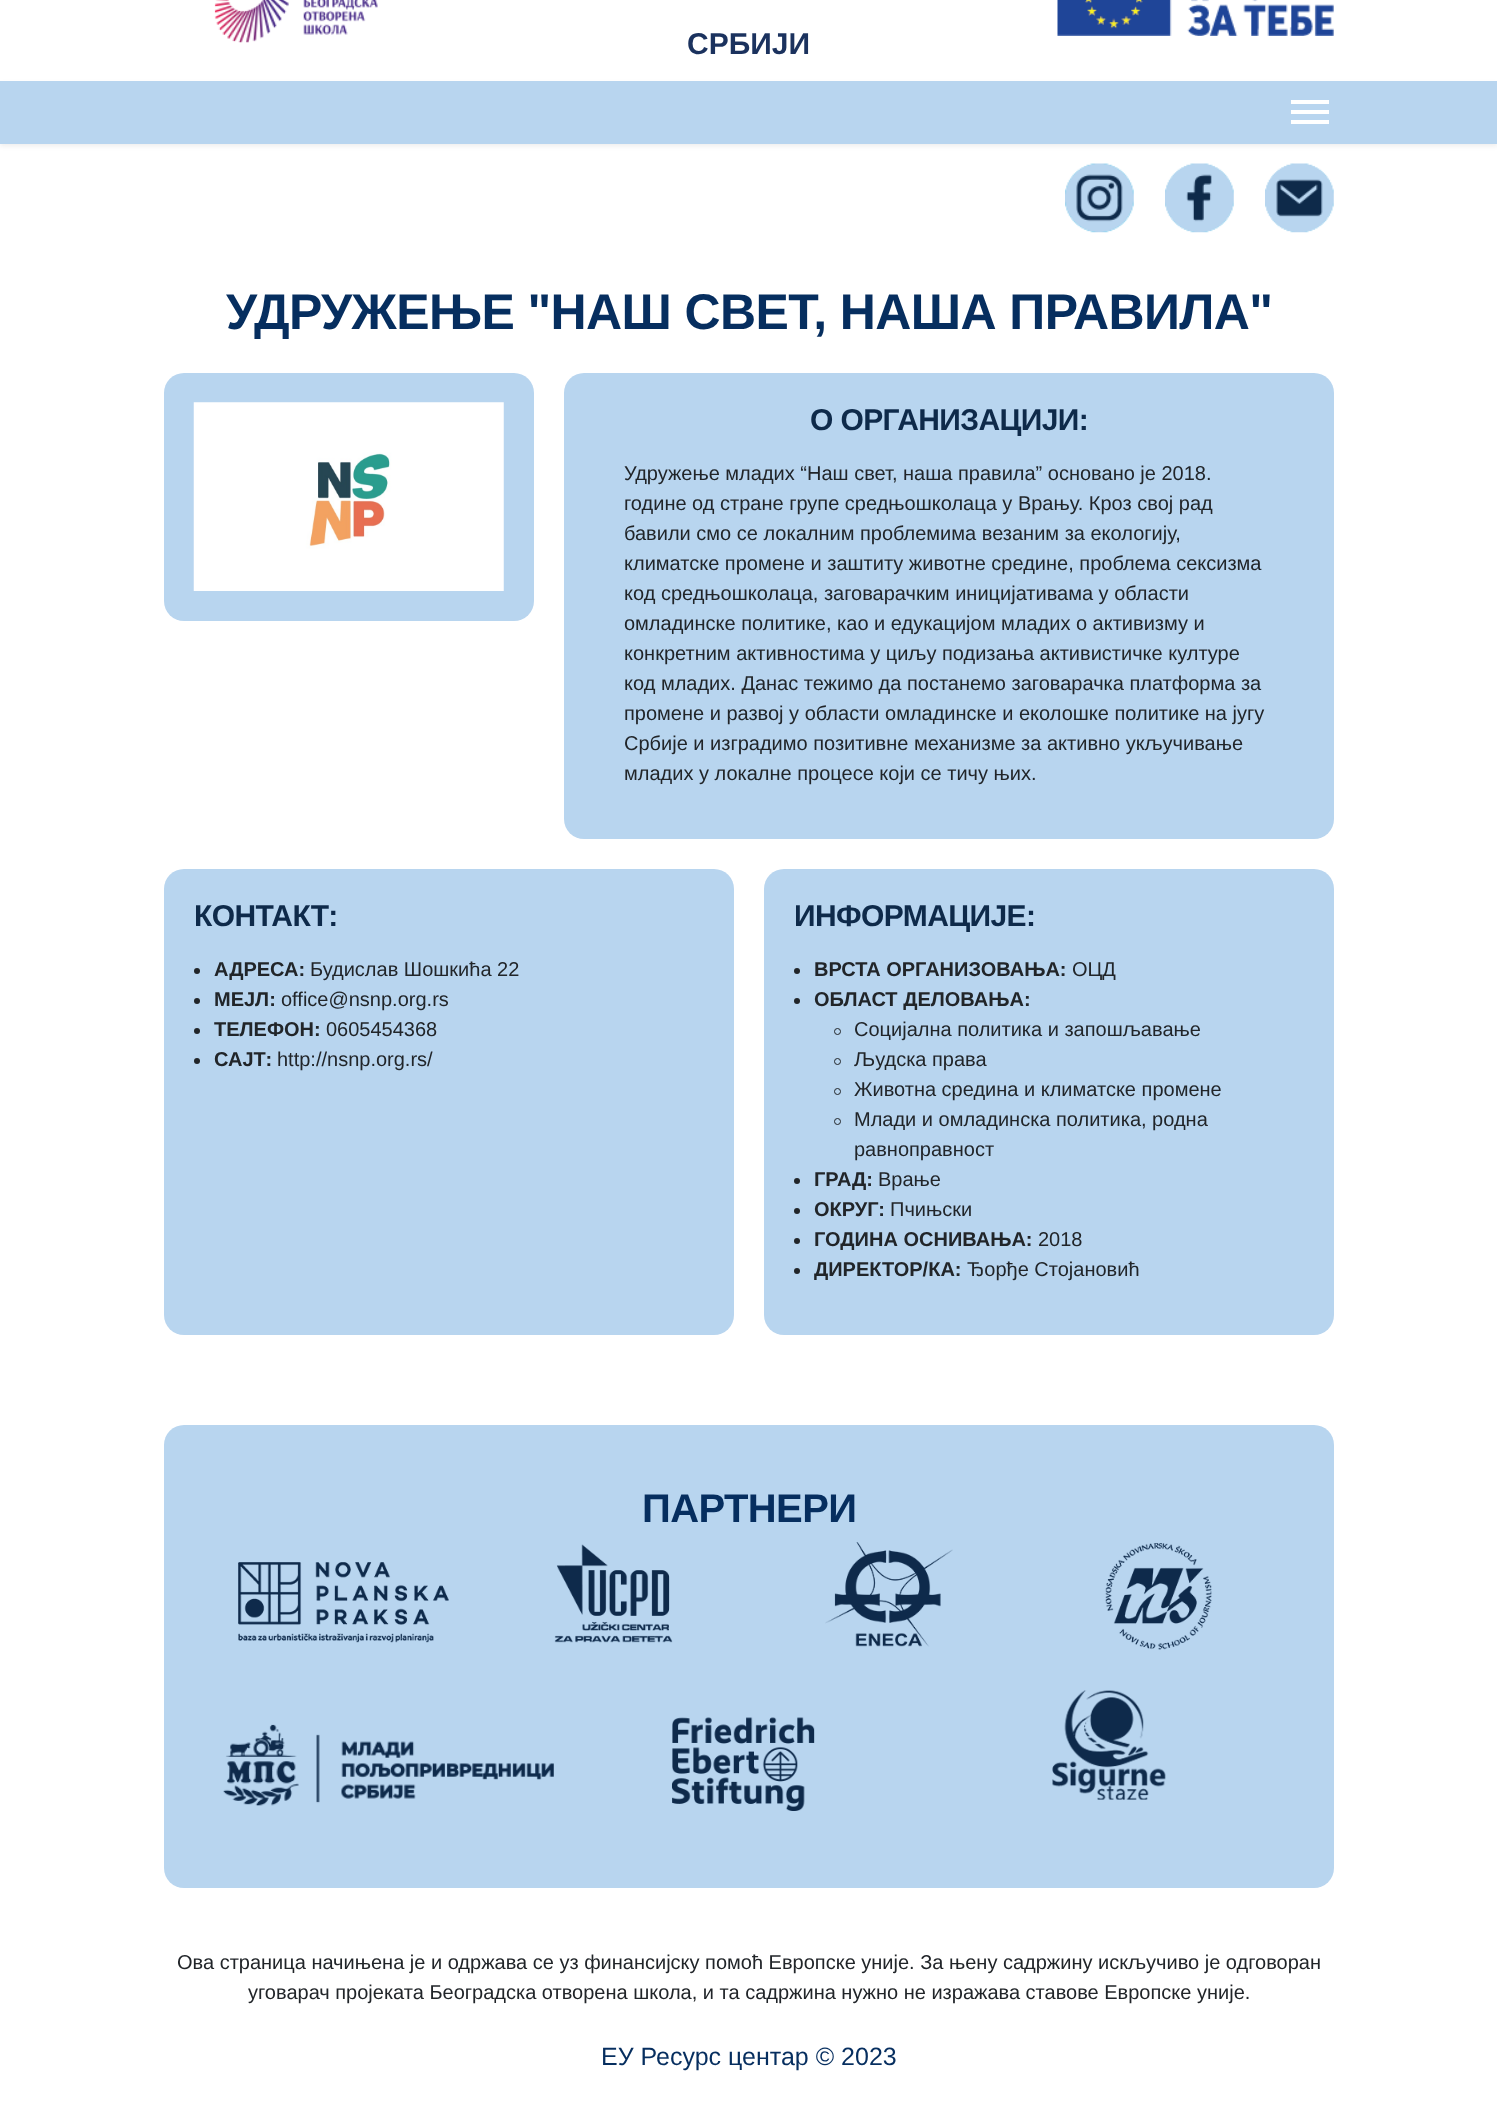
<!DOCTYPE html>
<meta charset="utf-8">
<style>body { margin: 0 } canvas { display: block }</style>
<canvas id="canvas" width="1497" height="2109"></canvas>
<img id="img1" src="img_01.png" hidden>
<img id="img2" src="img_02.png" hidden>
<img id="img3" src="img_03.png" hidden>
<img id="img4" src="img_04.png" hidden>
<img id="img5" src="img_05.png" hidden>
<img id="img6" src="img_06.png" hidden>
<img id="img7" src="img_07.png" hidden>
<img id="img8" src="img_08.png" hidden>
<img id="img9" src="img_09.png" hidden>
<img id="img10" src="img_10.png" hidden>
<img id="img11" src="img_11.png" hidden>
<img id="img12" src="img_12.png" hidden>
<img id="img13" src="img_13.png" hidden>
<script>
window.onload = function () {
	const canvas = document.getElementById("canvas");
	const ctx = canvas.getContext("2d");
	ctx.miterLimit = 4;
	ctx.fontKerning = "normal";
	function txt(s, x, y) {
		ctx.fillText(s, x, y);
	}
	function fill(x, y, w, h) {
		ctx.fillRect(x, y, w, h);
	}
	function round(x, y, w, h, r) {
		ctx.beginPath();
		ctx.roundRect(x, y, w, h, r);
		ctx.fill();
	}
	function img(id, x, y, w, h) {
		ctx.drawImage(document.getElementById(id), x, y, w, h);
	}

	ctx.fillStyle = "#FFFFFF";
	fill(0, 0, 1497, 2109);
	img("img1", 214, 0, 164, 43);
	img("img2", 1057, 0, 277, 36);
	ctx.fillStyle = "rgba(0, 0, 0, 0.07)";
	ctx.filter = "blur(2.5px)";
	ctx.beginPath();
	ctx.rect(0, 84, 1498, 62);
	ctx.fill();
	ctx.filter = "none";
	ctx.fillStyle = "#B8D5EF";
	fill(0, 81, 1497, 63);
	ctx.fillStyle = "#FFFFFF";
	fill(1291, 110, 38, 4);
	fill(1291, 100, 38, 4);
	fill(1291, 120, 38, 4);
	img("img3", 1065, 163, 69, 70);
	img("img4", 1165, 163, 69, 70);
	img("img5", 1265, 163, 69, 70);
	ctx.fillStyle = "#B8D5EF";
	round(164, 373, 370, 248, 20);
	img("img6", 193, 402, 311, 189);
	round(564, 373, 770, 466, 20);
	round(164, 869, 570, 466, 20);
	ctx.fillStyle = "#212529";
	ctx.beginPath();
	ctx.arc(197, 971, 3, 0, Math.PI * 2);
	ctx.fill();
	ctx.beginPath();
	ctx.arc(197, 1001, 3, 0, Math.PI * 2);
	ctx.fill();
	ctx.beginPath();
	ctx.arc(197, 1031, 3, 0, Math.PI * 2);
	ctx.fill();
	ctx.beginPath();
	ctx.arc(197, 1061, 3, 0, Math.PI * 2);
	ctx.fill();
	ctx.fillStyle = "#B8D5EF";
	round(764, 869, 570, 466, 20);
	ctx.fillStyle = "#212529";
	ctx.beginPath();
	ctx.arc(797, 971, 3, 0, Math.PI * 2);
	ctx.fill();
	ctx.beginPath();
	ctx.arc(797, 1001, 3, 0, Math.PI * 2);
	ctx.fill();
	ctx.beginPath();
	ctx.arc(837.5, 1031.5, 3, 0, Math.PI * 2);
	ctx.strokeStyle = "#212529";
	ctx.stroke();
	ctx.beginPath();
	ctx.arc(837.5, 1061.5, 3, 0, Math.PI * 2);
	ctx.stroke();
	ctx.beginPath();
	ctx.arc(837.5, 1091.5, 3, 0, Math.PI * 2);
	ctx.stroke();
	ctx.beginPath();
	ctx.arc(837.5, 1121.5, 3, 0, Math.PI * 2);
	ctx.stroke();
	ctx.beginPath();
	ctx.arc(797, 1181, 3, 0, Math.PI * 2);
	ctx.fill();
	ctx.beginPath();
	ctx.arc(797, 1211, 3, 0, Math.PI * 2);
	ctx.fill();
	ctx.beginPath();
	ctx.arc(797, 1241, 3, 0, Math.PI * 2);
	ctx.fill();
	ctx.beginPath();
	ctx.arc(797, 1271, 3, 0, Math.PI * 2);
	ctx.fill();
	ctx.fillStyle = "#B8D5EF";
	round(164, 1425, 1170, 463, 20);
	img("img7", 238, 1562, 211, 81);
	img("img8", 554, 1544, 119, 99);
	img("img9", 825, 1542, 128, 105);
	img("img10", 1105, 1543, 107, 107);
	img("img11", 223, 1724, 331, 82);
	img("img12", 671, 1717, 144, 94);
	img("img13", 1052, 1690, 114, 110);
	ctx.font = "bold 30px Liberation Sans";
	ctx.fillStyle = "#1B325E";
	txt("СРБИЈИ", 687, 54);
	ctx.letterSpacing = "-0.6px";
	ctx.font = "bold 50px Liberation Sans";
	ctx.fillStyle = "#062E5F";
	txt("УДРУЖЕЊЕ \"НАШ СВЕТ, НАША ПРАВИЛА\"", 226, 329);
	ctx.font = "bold 30px Liberation Sans";
	ctx.fillStyle = "#0E2A4A";
	txt("О ОРГАНИЗАЦИЈИ:", 810, 430);
	ctx.letterSpacing = "0px";
	ctx.font = "20px Liberation Sans";
	ctx.fillStyle = "#212529";
	txt("Удружење младих “Наш свет, наша правила” основано је 2018.", 624, 480);
	txt("године од стране групе средњошколаца у Врању. Кроз свој рад", 624, 510);
	txt("бавили смо се локалним проблемима везаним за екологију,", 624, 540);
	txt("климатске промене и заштиту животне средине, проблема сексизма", 624, 570);
	txt("код средњошколаца, заговарачким иницијативама у области", 624, 600);
	txt("омладинске политике, као и едукацијом младих о активизму и", 624, 630);
	txt("конкретним активностима у циљу подизања активистичке културе", 624, 660);
	txt("код младих. Данас тежимо да постанемо заговарачка платформа за", 624, 690);
	txt("промене и развој у области омладинске и еколошке политике на југу", 624, 720);
	txt("Србије и изградимо позитивне механизме за активно укључивање", 624, 750);
	txt("младих у локалне процесе који се тичу њих.", 624, 780);
	ctx.letterSpacing = "-0.6px";
	ctx.font = "bold 30px Liberation Sans";
	ctx.fillStyle = "#0E2A4A";
	txt("КОНТАКТ:", 194, 926);
	ctx.letterSpacing = "0px";
	ctx.font = "bold 20px Liberation Sans";
	ctx.fillStyle = "#212529";
	txt("АДРЕСА:", 214, 976);
	ctx.font = "20px Liberation Sans";
	txt("Будислав Шошкића 22", 310, 976);
	ctx.font = "bold 20px Liberation Sans";
	txt("МЕЈЛ:", 214, 1006);
	ctx.font = "20px Liberation Sans";
	txt("office@nsnp.org.rs", 281, 1006);
	ctx.font = "bold 20px Liberation Sans";
	txt("ТЕЛЕФОН:", 214, 1036);
	ctx.font = "20px Liberation Sans";
	txt("0605454368", 326, 1036);
	ctx.font = "bold 20px Liberation Sans";
	txt("САЈТ:", 214, 1066);
	ctx.font = "20px Liberation Sans";
	txt("http://nsnp.org.rs/", 277, 1066);
	ctx.letterSpacing = "-0.6px";
	ctx.font = "bold 30px Liberation Sans";
	ctx.fillStyle = "#0E2A4A";
	txt("ИНФОРМАЦИЈЕ:", 794, 926);
	ctx.letterSpacing = "0px";
	ctx.font = "bold 20px Liberation Sans";
	ctx.fillStyle = "#212529";
	txt("ВРСТА ОРГАНИЗОВАЊА:", 814, 976);
	ctx.font = "20px Liberation Sans";
	txt("ОЦД", 1072, 976);
	ctx.font = "bold 20px Liberation Sans";
	txt("ОБЛАСТ ДЕЛОВАЊА:", 814, 1006);
	ctx.font = "20px Liberation Sans";
	txt("Социјална политика и запошљавање", 854, 1036);
	txt("Људска права", 854, 1066);
	txt("Животна средина и климатске промене", 854, 1096);
	txt("Млади и омладинска политика, родна", 854, 1126);
	txt("равноправност", 854, 1156);
	ctx.font = "bold 20px Liberation Sans";
	txt("ГРАД:", 814, 1186);
	ctx.font = "20px Liberation Sans";
	txt("Врање", 878, 1186);
	ctx.font = "bold 20px Liberation Sans";
	txt("ОКРУГ:", 814, 1216);
	ctx.font = "20px Liberation Sans";
	txt("Пчињски", 890, 1216);
	ctx.font = "bold 20px Liberation Sans";
	txt("ГОДИНА ОСНИВАЊА:", 814, 1246);
	ctx.font = "20px Liberation Sans";
	txt("2018", 1038, 1246);
	ctx.font = "bold 20px Liberation Sans";
	txt("ДИРЕКТОР/КА:", 814, 1276);
	ctx.font = "20px Liberation Sans";
	txt("Ђорђе Стојановић", 967, 1276);
	ctx.letterSpacing = "-0.6px";
	ctx.font = "bold 40px Liberation Sans";
	ctx.fillStyle = "#062E5F";
	txt("ПАРТНЕРИ", 642, 1522);
	ctx.letterSpacing = "0px";
	ctx.font = "20px Liberation Sans";
	ctx.fillStyle = "#212529";
	txt("Ова страница начињена је и одржава се уз финансијску помоћ Европске уније. За њену садржину искључиво је одговоран", 177, 1969);
	txt("уговарач пројеката Београдска отворена школа, и та садржина нужно не изражава ставове Европске уније.", 248, 1999);
	ctx.font = "25px Liberation Sans";
	ctx.fillStyle = "#062E5F";
	txt("ЕУ Ресурс центар © 2023", 601, 2065);
};
</script>
